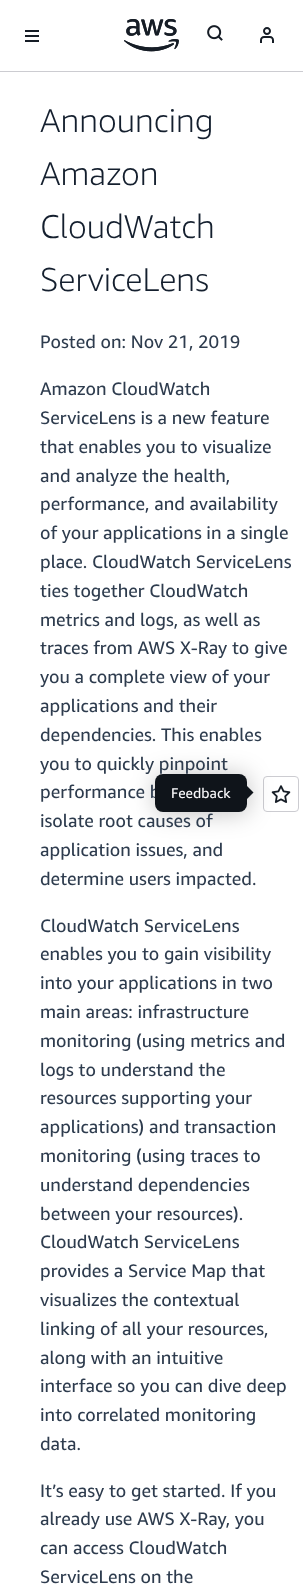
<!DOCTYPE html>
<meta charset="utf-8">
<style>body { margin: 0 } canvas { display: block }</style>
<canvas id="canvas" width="303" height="1587"></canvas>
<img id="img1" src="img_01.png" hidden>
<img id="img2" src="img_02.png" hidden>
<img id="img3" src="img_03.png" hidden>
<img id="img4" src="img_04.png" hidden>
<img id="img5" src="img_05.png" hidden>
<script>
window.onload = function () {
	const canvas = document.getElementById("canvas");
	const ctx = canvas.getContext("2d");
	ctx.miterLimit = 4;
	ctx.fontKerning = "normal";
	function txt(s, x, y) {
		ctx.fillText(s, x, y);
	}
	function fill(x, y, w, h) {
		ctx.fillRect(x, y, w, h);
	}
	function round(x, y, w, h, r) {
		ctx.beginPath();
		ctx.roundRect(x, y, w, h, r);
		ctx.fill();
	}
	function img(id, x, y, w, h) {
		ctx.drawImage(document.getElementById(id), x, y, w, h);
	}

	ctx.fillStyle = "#FFFFFF";
	fill(0, 0, 303, 1587);
	ctx.fillStyle = "#CCCCD1";
	fill(0, 71, 303, 1);
	img("img1", 25, 30, 14, 12);
	img("img2", 124, 19, 55, 33);
	img("img3", 207, 25, 16, 16);
	img("img4", 260, 27, 14, 16);
	ctx.beginPath();
	ctx.roundRect(263.5, 776.5, 35, 35, 3.5);
	ctx.strokeStyle = "#CCCCD1";
	ctx.stroke();
	img("img5", 271, 785, 20, 18);
	ctx.fillStyle = "rgba(0, 0, 0, 0.25)";
	ctx.filter = "blur(12px)";
	ctx.beginPath();
	ctx.roundRect(156, 775, 92, 38, 8);
	ctx.fill();
	ctx.filter = "none";
	ctx.font = "300 33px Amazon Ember";
	ctx.fillStyle = "#141F2E";
	txt("Announcing", 40, 132);
	txt("Amazon", 40, 185);
	txt("CloudWatch", 40, 238);
	txt("ServiceLens", 40, 291);
	ctx.font = "18px Amazon Ember";
	ctx.fillStyle = "#2E3C4E";
	txt("Posted on: Nov 21, 2019", 40, 348);
	txt("Amazon CloudWatch", 40, 395);
	txt("ServiceLens is a new feature", 40, 424);
	txt("that enables you to visualize", 40, 453);
	txt("and analyze the health,", 40, 482);
	txt("performance, and availability", 40, 510);
	txt("of your applications in a single", 40, 539);
	txt("place. CloudWatch ServiceLens", 40, 568);
	txt("ties together CloudWatch", 40, 597);
	txt("metrics and logs, as well as", 40, 626);
	txt("traces from AWS X-Ray to give", 40, 654);
	txt("you a complete view of your", 40, 683);
	txt("applications and their", 40, 712);
	txt("dependencies. This enables", 40, 741);
	txt("you to quickly pinpoint", 40, 770);
	txt("performance b", 40, 798);
	txt("isolate root causes of", 40, 827);
	txt("application issues, and", 40, 856);
	txt("determine users impacted.", 40, 885);
	txt("CloudWatch ServiceLens", 40, 932);
	txt("enables you to gain visibility", 40, 960);
	txt("into your applications in two", 40, 989);
	txt("main areas: infrastructure", 40, 1018);
	txt("monitoring (using metrics and", 40, 1047);
	txt("logs to understand the", 40, 1076);
	txt("resources supporting your", 40, 1104);
	txt("applications) and transaction", 40, 1133);
	txt("monitoring (using traces to", 40, 1162);
	txt("understand dependencies", 40, 1191);
	txt("between your resources).", 40, 1220);
	txt("CloudWatch ServiceLens", 40, 1248);
	txt("provides a Service Map that", 40, 1277);
	txt("visualizes the contextual", 40, 1306);
	txt("linking of all your resources,", 40, 1335);
	txt("along with an intuitive", 40, 1364);
	txt("interface so you can dive deep", 40, 1392);
	txt("into correlated monitoring", 40, 1421);
	txt("data.", 40, 1450);
	txt("It’s easy to get started. If you", 40, 1497);
	txt("already use AWS X-Ray, you", 40, 1525);
	txt("can access CloudWatch", 40, 1554);
	txt("ServiceLens on the", 40, 1583);
	ctx.fillStyle = "#0F141A";
	round(155, 774, 92, 38, 8);
	ctx.font = "14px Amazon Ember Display";
	ctx.fillStyle = "#F9F9FB";
	txt("Feedback", 171, 798);
	ctx.fillStyle = "#0F141A";
	ctx.beginPath();
	ctx.moveTo(247, 786);
	ctx.lineTo(253.5, 792.5);
	ctx.lineTo(246.5, 799.5);
	ctx.lineTo(246.5, 786);
	ctx.closePath();
	ctx.fill();
};
</script>
